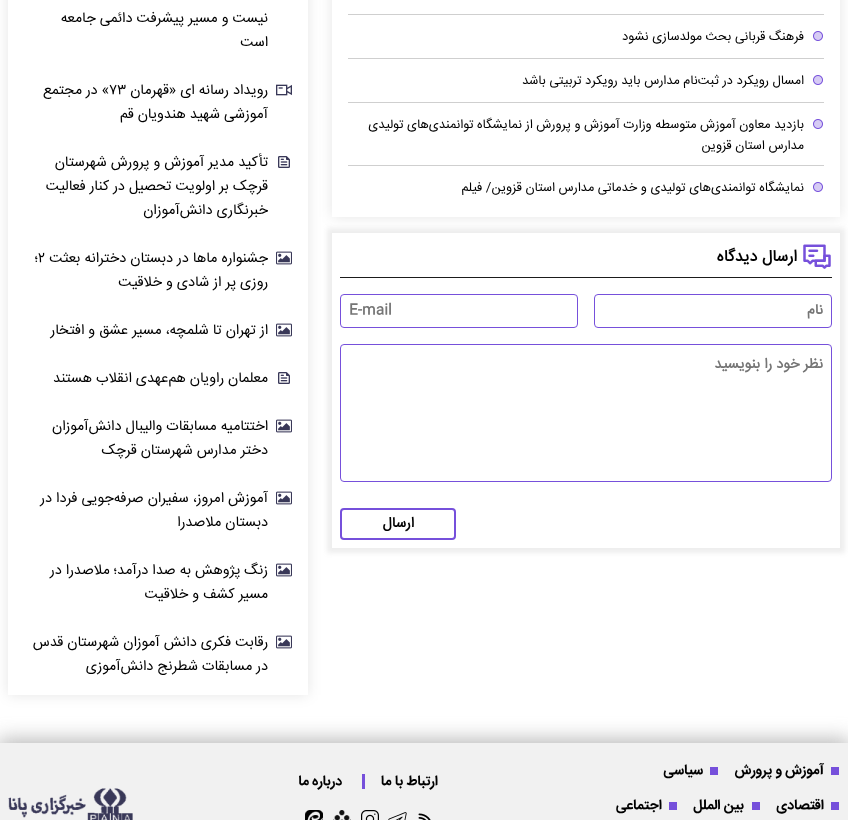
<!DOCTYPE html>
<meta charset="utf-8">
<style>body { margin: 0 } canvas { display: block }</style>
<canvas id="canvas" width="848" height="820"></canvas>
<img id="img1" src="img_01.png" hidden>
<img id="img2" src="img_02.png" hidden>
<img id="img3" src="img_03.png" hidden>
<img id="img4" src="img_04.png" hidden>
<img id="img5" src="img_05.png" hidden>
<img id="img6" src="img_06.png" hidden>
<img id="img7" src="img_07.png" hidden>
<img id="img8" src="img_08.png" hidden>
<img id="img9" src="img_09.png" hidden>
<img id="img10" src="img_10.png" hidden>
<img id="img11" src="img_11.png" hidden>
<script>
window.onload = function () {
	const canvas = document.getElementById("canvas");
	const ctx = canvas.getContext("2d");
	ctx.miterLimit = 4;
	ctx.fontKerning = "normal";
	function txt(s, x, y) {
		ctx.fillText(s, x, y);
	}
	function fill(x, y, w, h) {
		ctx.fillRect(x, y, w, h);
	}
	function img(id, x, y, w, h) {
		ctx.drawImage(document.getElementById(id), x, y, w, h);
	}

	ctx.fillStyle = "#FFFFFF";
	fill(0, 0, 848, 820);
	ctx.save();
	ctx.beginPath();
	ctx.moveTo(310, 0);
	ctx.lineTo(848, 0);
	ctx.lineTo(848, 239);
	ctx.lineTo(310, 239);
	ctx.closePath();
	ctx.moveTo(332, -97);
	ctx.lineTo(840, -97);
	ctx.lineTo(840, 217);
	ctx.lineTo(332, 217);
	ctx.closePath();
	ctx.clip("evenodd");
	ctx.fillStyle = "rgba(0, 0, 0, 0.1)";
	ctx.filter = "blur(7px)";
	ctx.beginPath();
	ctx.rect(332, -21, 508, 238);
	ctx.fill();
	ctx.filter = "none";
	ctx.restore();
	ctx.fillStyle = "#CFCFCF";
	fill(348, 14, 476, 1);
	fill(348, 58, 476, 1);
	img("img1", 813, 31, 10, 10);
	fill(348, 102, 476, 1);
	img("img1", 813, 75, 10, 10);
	fill(348, 165, 476, 1);
	img("img1", 813, 119, 10, 10);
	img("img1", 813, 182, 10, 10);
	ctx.save();
	ctx.beginPath();
	ctx.moveTo(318, 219);
	ctx.lineTo(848, 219);
	ctx.lineTo(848, 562);
	ctx.lineTo(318, 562);
	ctx.closePath();
	ctx.moveTo(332, 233);
	ctx.lineTo(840, 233);
	ctx.lineTo(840, 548);
	ctx.lineTo(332, 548);
	ctx.closePath();
	ctx.clip("evenodd");
	ctx.fillStyle = "#EEEEEE";
	ctx.filter = "blur(2.5px)";
	ctx.beginPath();
	ctx.rect(327, 228, 518, 325);
	ctx.fill();
	ctx.filter = "none";
	ctx.restore();
	ctx.fillStyle = "#1B1B1B";
	fill(340, 277, 492, 1);
	img("img2", 803, 244, 28, 25);
	ctx.beginPath();
	ctx.roundRect(594.5, 294.5, 237, 33, 3.5);
	ctx.strokeStyle = "#7650DB";
	ctx.stroke();
	ctx.beginPath();
	ctx.roundRect(340.5, 294.5, 237, 33, 3.5);
	ctx.stroke();
	ctx.beginPath();
	ctx.roundRect(340.5, 344.5, 491, 137, 3.5);
	ctx.stroke();
	ctx.beginPath();
	ctx.roundRect(341, 509, 114, 30, 3);
	ctx.lineWidth = 2;
	ctx.stroke();
	ctx.save();
	ctx.beginPath();
	ctx.moveTo(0, 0);
	ctx.lineTo(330, 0);
	ctx.lineTo(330, 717);
	ctx.lineTo(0, 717);
	ctx.closePath();
	ctx.moveTo(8, -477);
	ctx.lineTo(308, -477);
	ctx.lineTo(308, 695);
	ctx.lineTo(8, 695);
	ctx.closePath();
	ctx.clip("evenodd");
	ctx.fillStyle = "rgba(0, 0, 0, 0.1)";
	ctx.filter = "blur(7px)";
	ctx.beginPath();
	ctx.rect(8, -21, 300, 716);
	ctx.fill();
	ctx.filter = "none";
	ctx.restore();
	img("img3", 276, 84, 16, 12);
	img("img4", 278, 156, 12, 12);
	img("img5", 276, 251, 16, 14);
	img("img5", 276, 323, 16, 14);
	img("img4", 278, 372, 12, 12);
	img("img5", 276, 419, 16, 14);
	img("img5", 276, 491, 16, 14);
	img("img5", 276, 563, 16, 14);
	img("img5", 276, 635, 16, 14);
	ctx.fillStyle = "rgba(125, 125, 125, 0.53)";
	ctx.filter = "blur(10px)";
	ctx.beginPath();
	ctx.rect(-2, 739, 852, 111);
	ctx.fill();
	ctx.filter = "none";
	ctx.fillStyle = "#F1F1F1";
	fill(0, 743, 848, 77);
	ctx.fillStyle = "#7650DB";
	fill(831, 767, 8, 8);
	fill(710, 767, 8, 8);
	fill(831, 802, 8, 8);
	fill(752, 802, 8, 8);
	fill(669, 802, 8, 8);
	fill(362, 774, 3, 15);
	img("img6", 418, 813, 13, 7);
	img("img7", 388, 812, 19, 8);
	img("img8", 361, 810, 18, 10);
	img("img9", 333, 810, 18, 10);
	img("img10", 305, 810, 18, 10);
	img("img11", 8, 788, 125, 32);
	ctx.direction = "rtl";
	ctx.font = "12.8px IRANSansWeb";
	ctx.fillStyle = "#000000";
	txt("فرهنگ قربانی بحث مولدسازی نشود", 804, 40);
	txt("امسال رویکرد در ثبت‌نام مدارس باید رویکرد تربیتی باشد", 804, 84);
	txt("بازدید معاون آموزش متوسطه وزارت آموزش و پرورش از نمایشگاه توانمندی‌های تولیدی", 804, 128);
	txt("مدارس استان قزوین", 804, 149);
	txt("نمایشگاه توانمندی‌های تولیدی و خدماتی مدارس استان قزوین/ فیلم", 804, 191);
	ctx.font = "bold 16px IRANSansWeb";
	txt("ارسال دیدگاه", 797, 261);
	ctx.font = "bold 14.4px IRANSansWeb";
	ctx.fillStyle = "#757575";
	txt("نام", 823, 314);
	ctx.direction = "ltr";
	txt("E-mail", 349, 314);
	ctx.direction = "rtl";
	txt("نظر خود را بنویسید", 823, 368);
	ctx.fillStyle = "#000000";
	txt("ارسال", 414, 527);
	ctx.font = "14.4px IRANSansWeb";
	txt("نیست و مسیر پیشرفت دائمی جامعه", 268, 22);
	txt("است", 268, 46);
	txt("رویداد رسانه ای «قهرمان", 268, 94);
	ctx.direction = "ltr";
	txt("۷۳", 109, 94);
	ctx.direction = "rtl";
	txt("» در مجتمع", 109, 94);
	txt("آموزشی شهید هندویان قم", 268, 118);
	txt("تأکید مدیر آموزش و پرورش شهرستان", 268, 166);
	txt("قرچک بر اولویت تحصیل در کنار فعالیت", 268, 190);
	txt("خبرنگاری دانش‌آموزان", 268, 214);
	txt("جشنواره ماها در دبستان دخترانه بعثت", 268, 262);
	ctx.direction = "ltr";
	txt("۲", 38, 262);
	ctx.direction = "rtl";
	txt("؛", 38, 262);
	txt("روزی پر از شادی و خلاقیت", 268, 286);
	txt("از تهران تا شلمچه، مسیر عشق و افتخار", 268, 334);
	txt("معلمان راویان هم‌عهدی انقلاب هستند", 268, 382);
	txt("اختتامیه مسابقات والیبال دانش‌آموزان", 268, 430);
	txt("دختر مدارس شهرستان قرچک", 268, 454);
	txt("آموزش امروز، سفیران صرفه‌جویی فردا در", 268, 502);
	txt("دبستان ملاصدرا", 268, 526);
	txt("زنگ پژوهش به صدا درآمد؛ ملاصدرا در", 268, 574);
	txt("مسیر کشف و خلاقیت", 268, 598);
	txt("رقابت فکری دانش آموزان شهرستان قدس", 268, 646);
	txt("در مسابقات شطرنج دانش‌آموزی", 268, 670);
	ctx.font = "bold 14px 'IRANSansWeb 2'";
	txt("آموزش و پرورش", 824, 774);
	txt("سیاسی", 703, 774);
	txt("اقتصادی", 824, 809);
	txt("بین الملل", 744, 809);
	txt("اجتماعی", 662, 809);
	txt("ارتباط با ما", 438, 785);
	txt("درباره ما", 342, 785);
};
</script>
